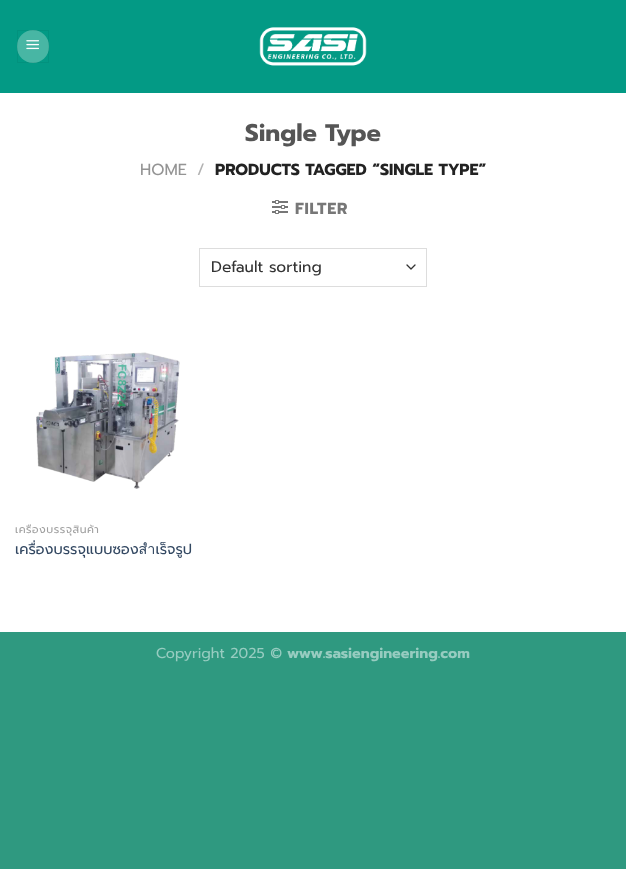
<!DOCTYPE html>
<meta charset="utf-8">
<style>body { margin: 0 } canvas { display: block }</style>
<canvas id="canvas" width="626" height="869"></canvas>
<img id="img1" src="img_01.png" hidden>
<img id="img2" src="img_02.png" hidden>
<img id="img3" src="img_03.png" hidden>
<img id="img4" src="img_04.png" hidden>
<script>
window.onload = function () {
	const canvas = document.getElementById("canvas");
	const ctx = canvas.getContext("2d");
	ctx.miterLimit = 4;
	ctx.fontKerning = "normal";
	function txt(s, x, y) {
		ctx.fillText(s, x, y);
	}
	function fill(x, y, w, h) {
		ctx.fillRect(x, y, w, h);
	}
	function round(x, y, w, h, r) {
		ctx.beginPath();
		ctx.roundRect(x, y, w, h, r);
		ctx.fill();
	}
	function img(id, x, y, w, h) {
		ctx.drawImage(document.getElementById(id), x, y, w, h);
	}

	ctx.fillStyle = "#2F9980";
	fill(0, 0, 626, 869);
	ctx.fillStyle = "#FFFFFF";
	fill(0, 93, 626, 539);
	ctx.fillStyle = "#039A85";
	fill(0, 0, 626, 93);
	ctx.fillStyle = "#48B6A4";
	round(17, 30, 32, 33, 16);
	ctx.strokeStyle = "rgba(0, 0, 0, 0.05)";
	ctx.strokeRect(17.5, 30.5, 31, 32);
	img("img1", 26, 40, 13, 10);
	img("img2", 259, 27, 108, 39);
	img("img3", 272, 200, 16, 14);
	ctx.beginPath();
	ctx.moveTo(407, 265);
	ctx.lineTo(411, 269);
	ctx.lineTo(415, 265);
	ctx.strokeStyle = "#333333";
	ctx.lineWidth = 1.3;
	ctx.lineCap = "round";
	ctx.lineJoin = "round";
	ctx.stroke();
	ctx.strokeStyle = "#DDDDDD";
	ctx.lineWidth = 1;
	ctx.lineJoin = "miter";
	ctx.strokeRect(199.5, 248.5, 227, 38);
	img("img4", 36, 352, 144, 137);
	ctx.font = "bold 24px Prompt";
	ctx.fillStyle = "#555555";
	txt("Single Type", 245, 141);
	ctx.font = "16px Prompt";
	ctx.fillStyle = "#949494";
	txt("HOME", 140, 175);
	ctx.fillStyle = "#B2B2B2";
	txt("/", 197, 175);
	ctx.font = "bold 16px Prompt";
	ctx.fillStyle = "#222222";
	txt("PRODUCTS TAGGED “SINGLE TYPE”", 215, 175);
	ctx.letterSpacing = "0.75px";
	ctx.fillStyle = "#777777";
	txt("FILTER", 295, 214);
	ctx.letterSpacing = "0px";
	ctx.font = "15.5px Prompt";
	ctx.fillStyle = "#333333";
	txt("Default sorting", 211, 272);
	ctx.save();
	ctx.beginPath();
	ctx.rect(15, 524, 186, 13);
	ctx.clip();
	ctx.letterSpacing = "0.5px";
	ctx.font = "10.75px Prompt";
	ctx.fillStyle = "#A0A0A0";
	txt("เครื่องบรรจุสินค้า", 15, 533);
	ctx.restore();
	ctx.font = "14.4px Prompt";
	ctx.fillStyle = "#334862";
	txt("เครื่องบรรจุแบบซองสำเร็จรูป", 15, 554);
	ctx.fillStyle = "#97CCC0";
	txt("Copyright 2025 ©", 156, 658);
	ctx.font = "bold 14.4px Prompt";
	txt("www.sasiengineering.com", 287, 658);
};
</script>
